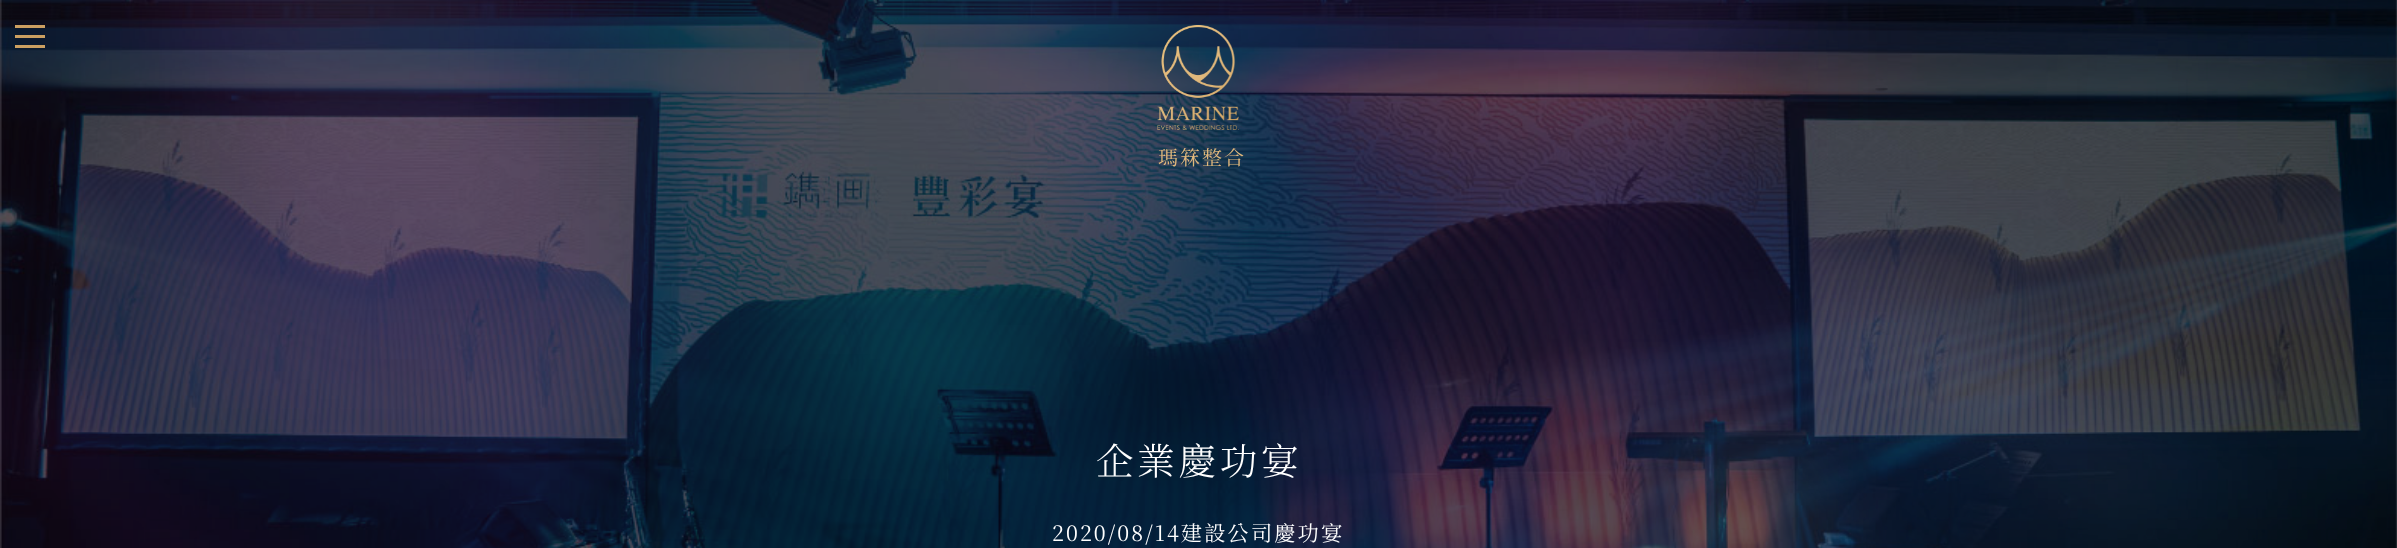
<!DOCTYPE html>
<meta charset="utf-8">
<style>body { margin: 0 } canvas { display: block }</style>
<canvas id="canvas" width="2397" height="548"></canvas>
<img id="img1" src="img_02.png" hidden>
<img id="img2" src="img_03.png" hidden>
<img id="img3" src="img_01.png" hidden>
<script>
window.onload = function () {
	const canvas = document.getElementById("canvas");
	const ctx = canvas.getContext("2d");
	ctx.miterLimit = 4;
	ctx.fontKerning = "normal";
	function txt(s, x, y) {
		ctx.fillText(s, x, y);
	}
	function fill(x, y, w, h) {
		ctx.fillRect(x, y, w, h);
	}
	function img(id, x, y, w, h) {
		ctx.drawImage(document.getElementById(id), x, y, w, h);
	}

	ctx.fillStyle = "#FFFFFF";
	fill(0, 0, 2397, 548);
	img("img1", 0, 0, 2397, 548);
	img("img2", 0, 0, 2397, 548);
	ctx.fillStyle = "#CB9F61";
	fill(15, 25, 30, 3);
	fill(15, 35, 30, 3);
	fill(15, 45, 30, 3);
	img("img3", 1157, 25, 82, 105);
	ctx.letterSpacing = "2px";
	ctx.font = "20px Noto Serif TC";
	ctx.fillStyle = "#E1B87C";
	txt("瑪箖整合", 1158, 165);
	ctx.letterSpacing = "3.75px";
	ctx.font = "300 37.5px Noto Serif TC";
	ctx.fillStyle = "#FFFFFF";
	txt("企業慶功宴", 1096, 475);
	ctx.letterSpacing = "2.1px";
	ctx.font = "21.25px Noto Serif TC";
	txt("2020/08/14建設公司慶功宴", 1052, 541);
};
</script>
